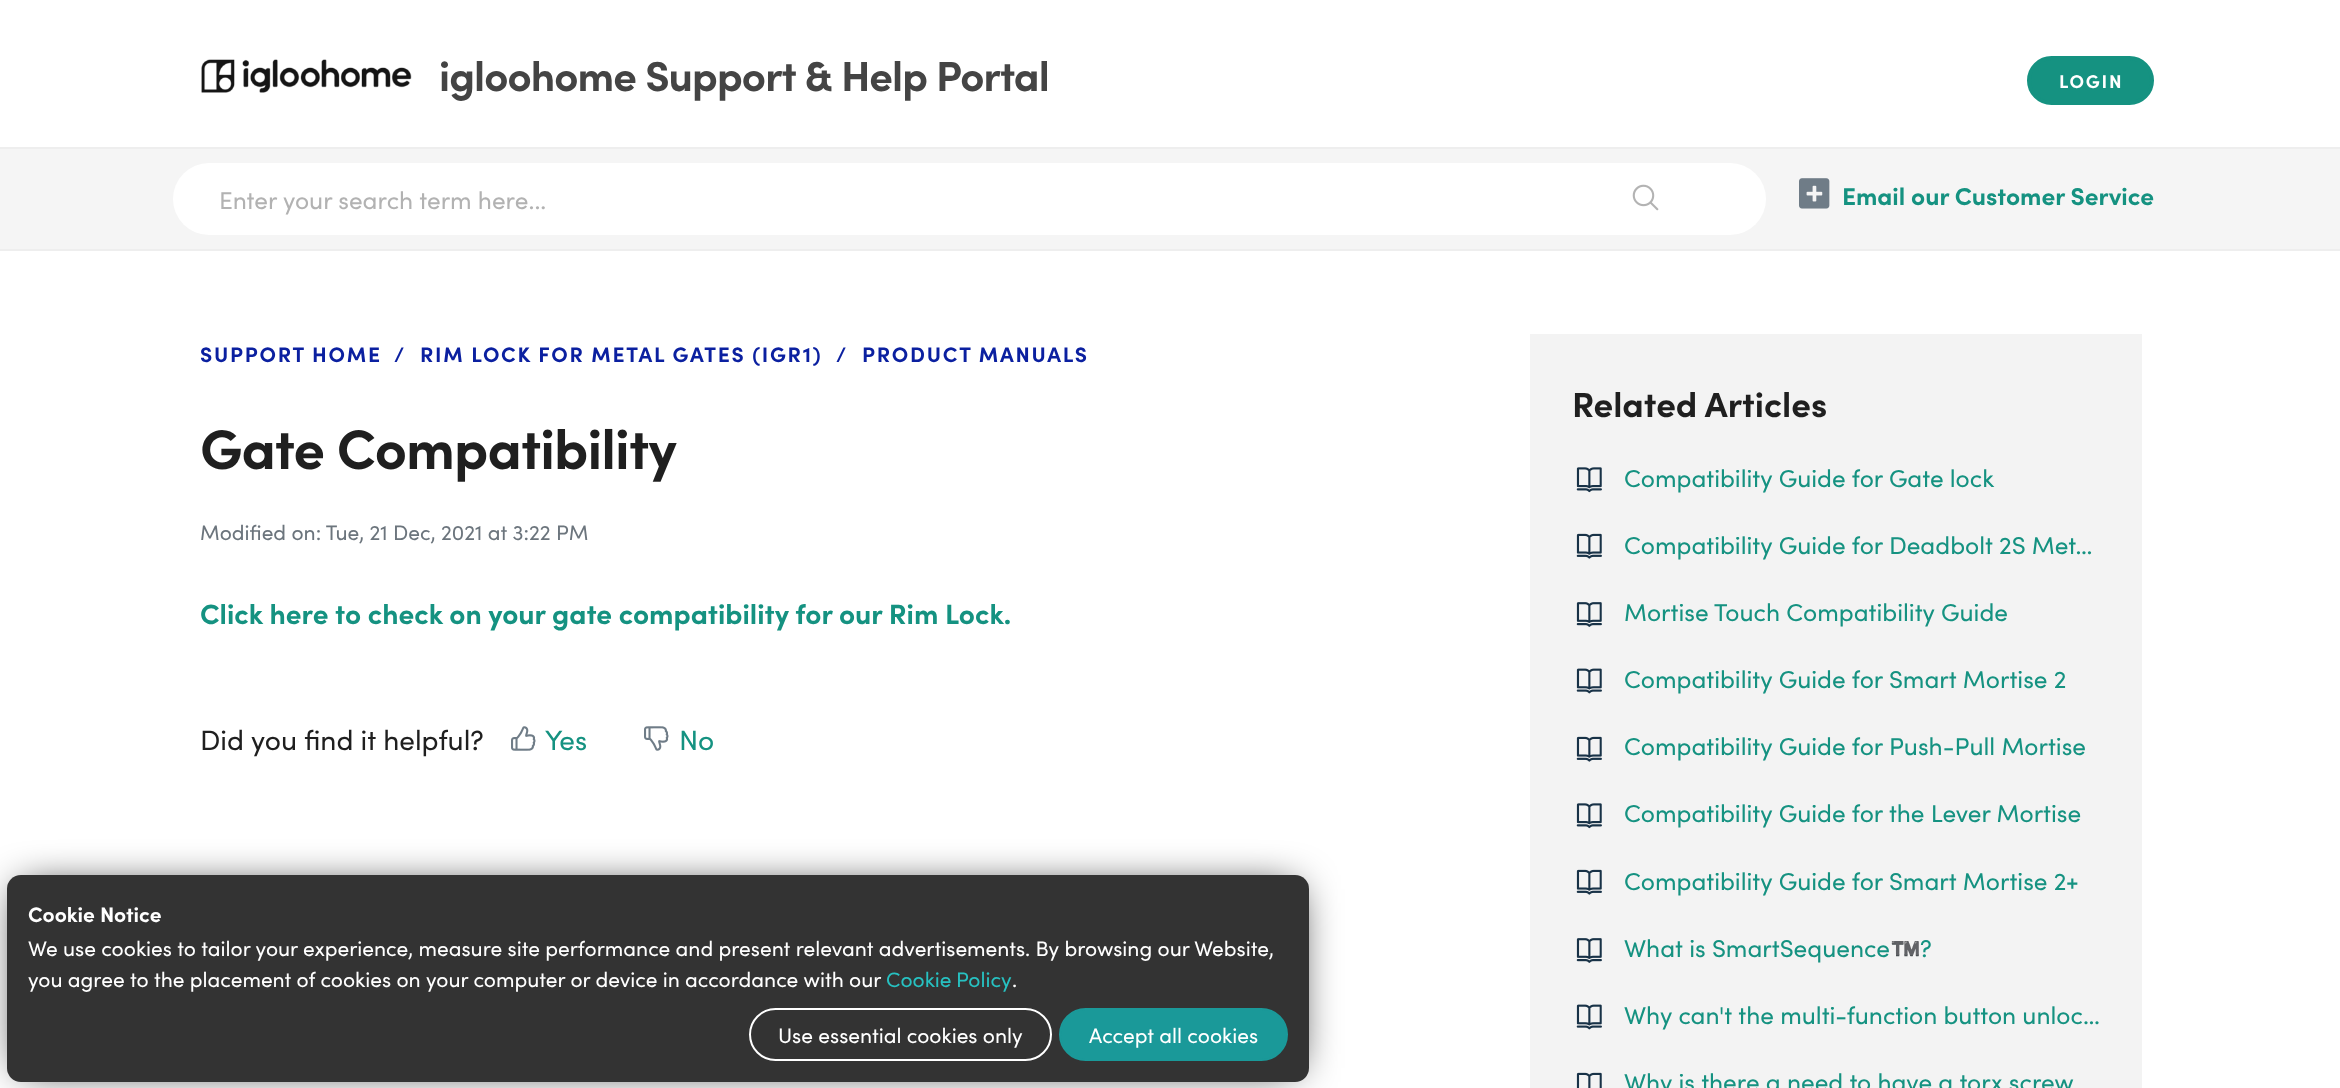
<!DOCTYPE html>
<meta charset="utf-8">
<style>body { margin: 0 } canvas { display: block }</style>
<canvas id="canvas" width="2340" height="1088"></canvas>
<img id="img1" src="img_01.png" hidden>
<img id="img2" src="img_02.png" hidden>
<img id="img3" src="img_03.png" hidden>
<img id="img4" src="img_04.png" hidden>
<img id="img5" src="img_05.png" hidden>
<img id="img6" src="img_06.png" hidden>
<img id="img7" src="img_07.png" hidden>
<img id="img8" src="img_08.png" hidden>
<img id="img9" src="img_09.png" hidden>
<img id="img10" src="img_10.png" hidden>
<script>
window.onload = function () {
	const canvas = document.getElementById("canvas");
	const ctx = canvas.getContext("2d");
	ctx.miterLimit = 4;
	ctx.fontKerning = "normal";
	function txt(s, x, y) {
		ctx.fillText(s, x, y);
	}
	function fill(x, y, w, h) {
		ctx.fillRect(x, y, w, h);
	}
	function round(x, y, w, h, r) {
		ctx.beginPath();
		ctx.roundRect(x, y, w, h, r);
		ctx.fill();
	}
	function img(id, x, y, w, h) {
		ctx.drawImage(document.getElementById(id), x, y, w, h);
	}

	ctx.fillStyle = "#FFFFFF";
	fill(0, 0, 2340, 1088);
	ctx.fillStyle = "#EEEEEE";
	fill(0, 147, 2340, 2);
	img("img1", 201, 59, 211, 34);
	ctx.fillStyle = "#159281";
	ctx.beginPath();
	ctx.roundRect(2029, 58, 123, 45, 22.5);
	ctx.fill();
	ctx.strokeStyle = "#159281";
	ctx.lineWidth = 4;
	ctx.stroke();
	ctx.fillStyle = "#F5F5F5";
	fill(0, 149, 2340, 100);
	ctx.fillStyle = "#EEEEEE";
	fill(0, 249, 2340, 2);
	ctx.fillStyle = "#FFFFFF";
	round(173, 163, 1593, 72, 36);
	img("img2", 1632, 184, 27, 27);
	img("img3", 1799, 178, 31, 31);
	img("img4", 511, 726, 25, 25);
	img("img5", 644, 726, 25, 25);
	ctx.fillStyle = "#F3F3F3";
	fill(1530, 334, 612, 754);
	img("img6", 1576, 467, 26, 26);
	img("img7", 1576, 533, 26, 26);
	img("img8", 1576, 602, 26, 25);
	img("img9", 1576, 668, 26, 26);
	img("img7", 1576, 736, 26, 26);
	img("img6", 1576, 803, 26, 26);
	img("img7", 1576, 869, 26, 26);
	img("img8", 1576, 938, 26, 25);
	img("img9", 1576, 1004, 26, 26);
	img("img10", 1576, 1072, 26, 16);
	ctx.fillStyle = "#000000";
	ctx.filter = "blur(21px)";
	ctx.beginPath();
	ctx.rect(21, 889, 1274, 179);
	ctx.fill();
	ctx.filter = "none";
	ctx.fillStyle = "#333333";
	round(7, 875, 1302, 207, 14);
	ctx.beginPath();
	ctx.roundRect(750, 1009, 301, 51, 25.5);
	ctx.strokeStyle = "#FFFFFF";
	ctx.lineWidth = 2;
	ctx.stroke();
	ctx.fillStyle = "#1A9999";
	ctx.beginPath();
	ctx.roundRect(1060, 1009, 227, 51, 25.5);
	ctx.fill();
	ctx.strokeStyle = "#1A9999";
	ctx.stroke();
	ctx.letterSpacing = "-0.9px";
	ctx.font = "bold 42px Sofia";
	ctx.fillStyle = "#444444";
	txt("igloohome Support & Help Portal", 439, 91);
	ctx.letterSpacing = "1.75px";
	ctx.font = "bold 18.5px Sofia";
	ctx.fillStyle = "#FFFFFF";
	txt("LOGIN", 2059, 88);
	ctx.letterSpacing = "0px";
	ctx.font = "24.5px Sofia";
	ctx.fillStyle = "#B2B2B2";
	txt("Enter your search term here...", 219, 209);
	ctx.font = "bold 24.5px Sofia";
	ctx.fillStyle = "#159281";
	txt("Email our Customer Service", 1842, 205);
	ctx.letterSpacing = "1.75px";
	ctx.font = "bold 21px Sofia";
	ctx.fillStyle = "#0B20A0";
	txt("SUPPORT HOME", 200, 362);
	txt("/", 394, 362);
	txt("RIM LOCK FOR METAL GATES (IGR1)", 420, 362);
	txt("/", 836, 362);
	txt("PRODUCT MANUALS", 862, 362);
	ctx.letterSpacing = "-0.9px";
	ctx.font = "bold 56px Sofia";
	ctx.fillStyle = "#1F1F1F";
	txt("Gate Compatibility", 200, 469);
	ctx.letterSpacing = "0px";
	ctx.font = "21px Sofia";
	ctx.fillStyle = "#6C757D";
	txt("Modified on: Tue, 21 Dec, 2021 at 3:22 PM", 200, 540);
	ctx.font = "bold 28px Sofia";
	ctx.fillStyle = "#159281";
	txt("Click here to check on your gate compatibility for our Rim Lock.", 200, 624);
	ctx.font = "28px Sofia";
	ctx.fillStyle = "#1F1F1F";
	txt("Did you find it helpful?", 200, 750);
	ctx.fillStyle = "#159281";
	txt("Yes", 545, 750);
	txt("No", 679, 750);
	ctx.font = "bold 35px Sofia";
	ctx.fillStyle = "#1F1F1F";
	txt("Related Articles", 1572, 417);
	ctx.font = "24.5px Sofia";
	ctx.fillStyle = "#159281";
	txt("Compatibility Guide for Gate lock", 1624, 487);
	txt("Compatibility Guide for Deadbolt 2S Met…", 1624, 554);
	txt("Mortise Touch Compatibility Guide", 1624, 621);
	txt("Compatibility Guide for Smart Mortise 2", 1624, 688);
	txt("Compatibility Guide for Push-Pull Mortise", 1624, 755);
	txt("Compatibility Guide for the Lever Mortise", 1624, 822);
	txt("Compatibility Guide for Smart Mortise 2+", 1624, 890);
	txt("What is SmartSequence", 1624, 957);
	ctx.font = "24.5px Noto Color Emoji";
	txt("™️", 1890, 957);
	ctx.font = "24.5px Sofia";
	txt("?", 1920, 957);
	txt("Why can't the multi-function button unloc…", 1624, 1024);
	txt("Why is there a need to have a torx screw", 1624, 1091);
	ctx.font = "bold 21px Sofia";
	ctx.fillStyle = "#FFFFFF";
	txt("Cookie Notice", 28, 922);
	ctx.font = "21px Sofia";
	txt("We use cookies to tailor your experience, measure site performance and present relevant advertisements. By browsing our Website,", 28, 956);
	txt("you agree to the placement of cookies on your computer or device in accordance with our", 28, 987);
	ctx.wordSpacing = "-1px";
	ctx.fillStyle = "#27C1C1";
	txt("Cookie Policy", 886, 987);
	ctx.wordSpacing = "0px";
	ctx.fillStyle = "#FFFFFF";
	txt(".", 1012, 987);
	txt("Use essential cookies only", 778, 1043);
	txt("Accept all cookies", 1089, 1043);
};
</script>
